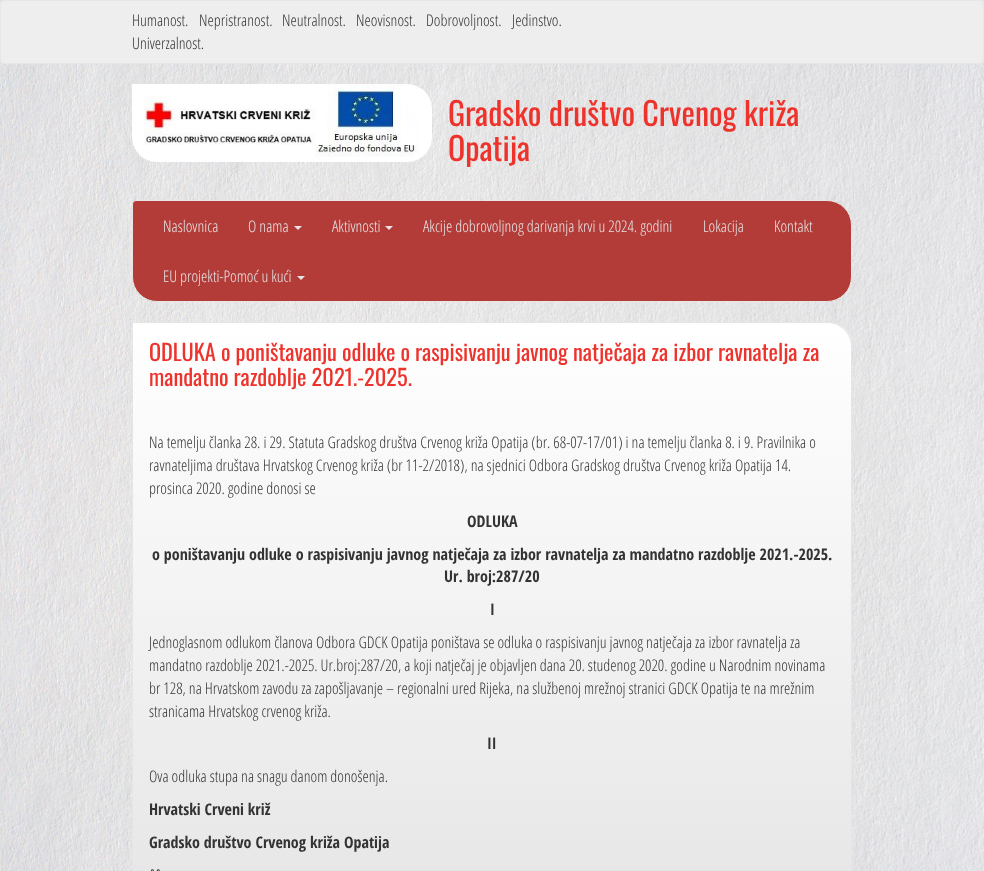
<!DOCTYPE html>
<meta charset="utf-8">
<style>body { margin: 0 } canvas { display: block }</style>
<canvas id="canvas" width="984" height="871"></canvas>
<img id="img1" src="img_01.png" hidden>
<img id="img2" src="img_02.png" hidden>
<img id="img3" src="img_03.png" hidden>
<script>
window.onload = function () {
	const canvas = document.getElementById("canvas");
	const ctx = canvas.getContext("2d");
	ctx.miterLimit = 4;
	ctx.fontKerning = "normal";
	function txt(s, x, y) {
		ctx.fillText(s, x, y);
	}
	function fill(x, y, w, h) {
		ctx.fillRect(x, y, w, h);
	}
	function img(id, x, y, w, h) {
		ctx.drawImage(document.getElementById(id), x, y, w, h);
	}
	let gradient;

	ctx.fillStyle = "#FFFFFF";
	fill(0, 0, 984, 871);
	img("img1", 0, 0, 984, 871);
	ctx.fillStyle = "#EEEEEE";
	ctx.beginPath();
	ctx.roundRect(0.5, 0.5, 983, 63, 3.5);
	ctx.fill();
	ctx.strokeStyle = "#E7E7E7";
	ctx.stroke();
	img("img2", 132, 84, 300, 78);
	ctx.fillStyle = "#B43C38";
	ctx.beginPath();
	ctx.roundRect(132.5, 200.5, 719, 101, [3.5, 24.5, 24.5, 24.5]);
	ctx.fill();
	ctx.stroke();
	ctx.fillStyle = "#E5E5E5";
	ctx.beginPath();
	ctx.moveTo(294, 226);
	ctx.lineTo(302, 226);
	ctx.lineTo(298, 230);
	ctx.closePath();
	ctx.fill();
	ctx.beginPath();
	ctx.moveTo(385, 226);
	ctx.lineTo(393, 226);
	ctx.lineTo(389, 230);
	ctx.closePath();
	ctx.fill();
	ctx.beginPath();
	ctx.moveTo(297, 276);
	ctx.lineTo(305, 276);
	ctx.lineTo(301, 280);
	ctx.closePath();
	ctx.fill();
	ctx.save();
	ctx.beginPath();
	ctx.moveTo(132, 322);
	ctx.lineTo(827, 322);
	ctx.bezierCurveTo(841, 322, 852, 333, 852, 347);
	ctx.lineTo(852, 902);
	ctx.bezierCurveTo(852, 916, 841, 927, 827, 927);
	ctx.lineTo(157, 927);
	ctx.bezierCurveTo(143, 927, 132, 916, 132, 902);
	ctx.closePath();
	ctx.clip();
	gradient = ctx.createLinearGradient(492, 323, 492, 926);
	gradient.addColorStop(0, "#FFFFFF");
	gradient.addColorStop(1, "#E5E5E5");
	ctx.fillStyle = gradient;
	fill(133, 323, 719, 548);
	ctx.restore();
	ctx.beginPath();
	ctx.moveTo(132.5, 322.5);
	ctx.lineTo(827, 322.5);
	ctx.bezierCurveTo(840.5, 322.5, 851.5, 333.5, 851.5, 347);
	ctx.lineTo(851.5, 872);
	ctx.bezierCurveTo(851.5, 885.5, 840.5, 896.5, 827, 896.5);
	ctx.lineTo(157, 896.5);
	ctx.bezierCurveTo(143.5, 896.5, 132.5, 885.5, 132.5, 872);
	ctx.closePath();
	ctx.strokeStyle = "#E5E5E5";
	ctx.stroke();
	img("img3", 150, 869, 10, 2);
	ctx.font = "300 16px Open Sans Condensed";
	ctx.fillStyle = "#333333";
	txt("Humanost.", 132, 26);
	txt("Nepristranost.", 199, 26);
	txt("Neutralnost.", 282, 26);
	txt("Neovisnost.", 356, 26);
	txt("Dobrovoljnost.", 426, 26);
	txt("Jedinstvo.", 512, 26);
	txt("Univerzalnost.", 132, 49);
	ctx.font = "32px Oswald";
	ctx.fillStyle = "#ED332C";
	txt("Gradsko društvo Crvenog križa", 448, 126);
	txt("Opatija", 448, 161);
	ctx.font = "300 16px Open Sans Condensed";
	ctx.fillStyle = "#E5E5E5";
	txt("Naslovnica", 163, 232);
	txt("O nama", 248, 232);
	txt("Aktivnosti", 332, 232);
	txt("Akcije dobrovoljnog darivanja krvi u 2024. godini", 423, 232);
	txt("Lokacija", 703, 232);
	txt("Kontakt", 774, 232);
	txt("EU projekti-Pomoć u kući", 163, 282);
	ctx.font = "22.4px Oswald";
	ctx.fillStyle = "#ED332C";
	txt("ODLUKA o poništavanju odluke o raspisivanju javnog natječaja za izbor ravnatelja za", 149, 361);
	txt("mandatno razdoblje 2021.-2025.", 149, 386);
	ctx.font = "300 16px Open Sans Condensed";
	ctx.fillStyle = "#333333";
	txt("Na temelju članka 28. i 29. Statuta Gradskog društva Crvenog križa Opatija (br. 68-07-17/01) i na temelju članka 8. i 9. Pravilnika o", 149, 448);
	txt("ravnateljima društava Hrvatskog Crvenog križa (br 11-2/2018), na sjednici Odbora Gradskog društva Crvenog križa Opatija 14.", 149, 471);
	txt("prosinca 2020. godine donosi se", 149, 494);
	ctx.font = "bold 16px Open Sans Condensed";
	txt("ODLUKA", 467, 527);
	txt("o poništavanju odluke o raspisivanju javnog natječaja za izbor ravnatelja za mandatno razdoblje 2021.-2025.", 152, 560);
	txt("Ur. broj:287/20", 444, 582);
	txt("I", 490, 615);
	ctx.font = "300 16px Open Sans Condensed";
	txt("Jednoglasnom odlukom članova Odbora GDCK Opatija poništava se odluka o raspisivanju javnog natječaja za izbor ravnatelja za", 149, 648);
	txt("mandatno razdoblje 2021.-2025. Ur.broj:287/20, a koji natječaj je objavljen dana 20. studenog 2020. godine u Narodnim novinama", 149, 671);
	txt("br 128, na Hrvatskom zavodu za zapošljavanje – regionalni ured Rijeka, na službenoj mrežnoj stranici GDCK Opatija te na mrežnim", 149, 694);
	txt("stranicama Hrvatskog crvenog križa.", 149, 717);
	ctx.font = "bold 16px Open Sans Condensed";
	txt("II", 487, 749);
	ctx.font = "300 16px Open Sans Condensed";
	txt("Ova odluka stupa na snagu danom donošenja.", 149, 782);
	ctx.font = "bold 16px Open Sans Condensed";
	txt("Hrvatski Crveni križ", 149, 815);
	txt("Gradsko društvo Crvenog križa Opatija", 149, 848);
};
</script>
